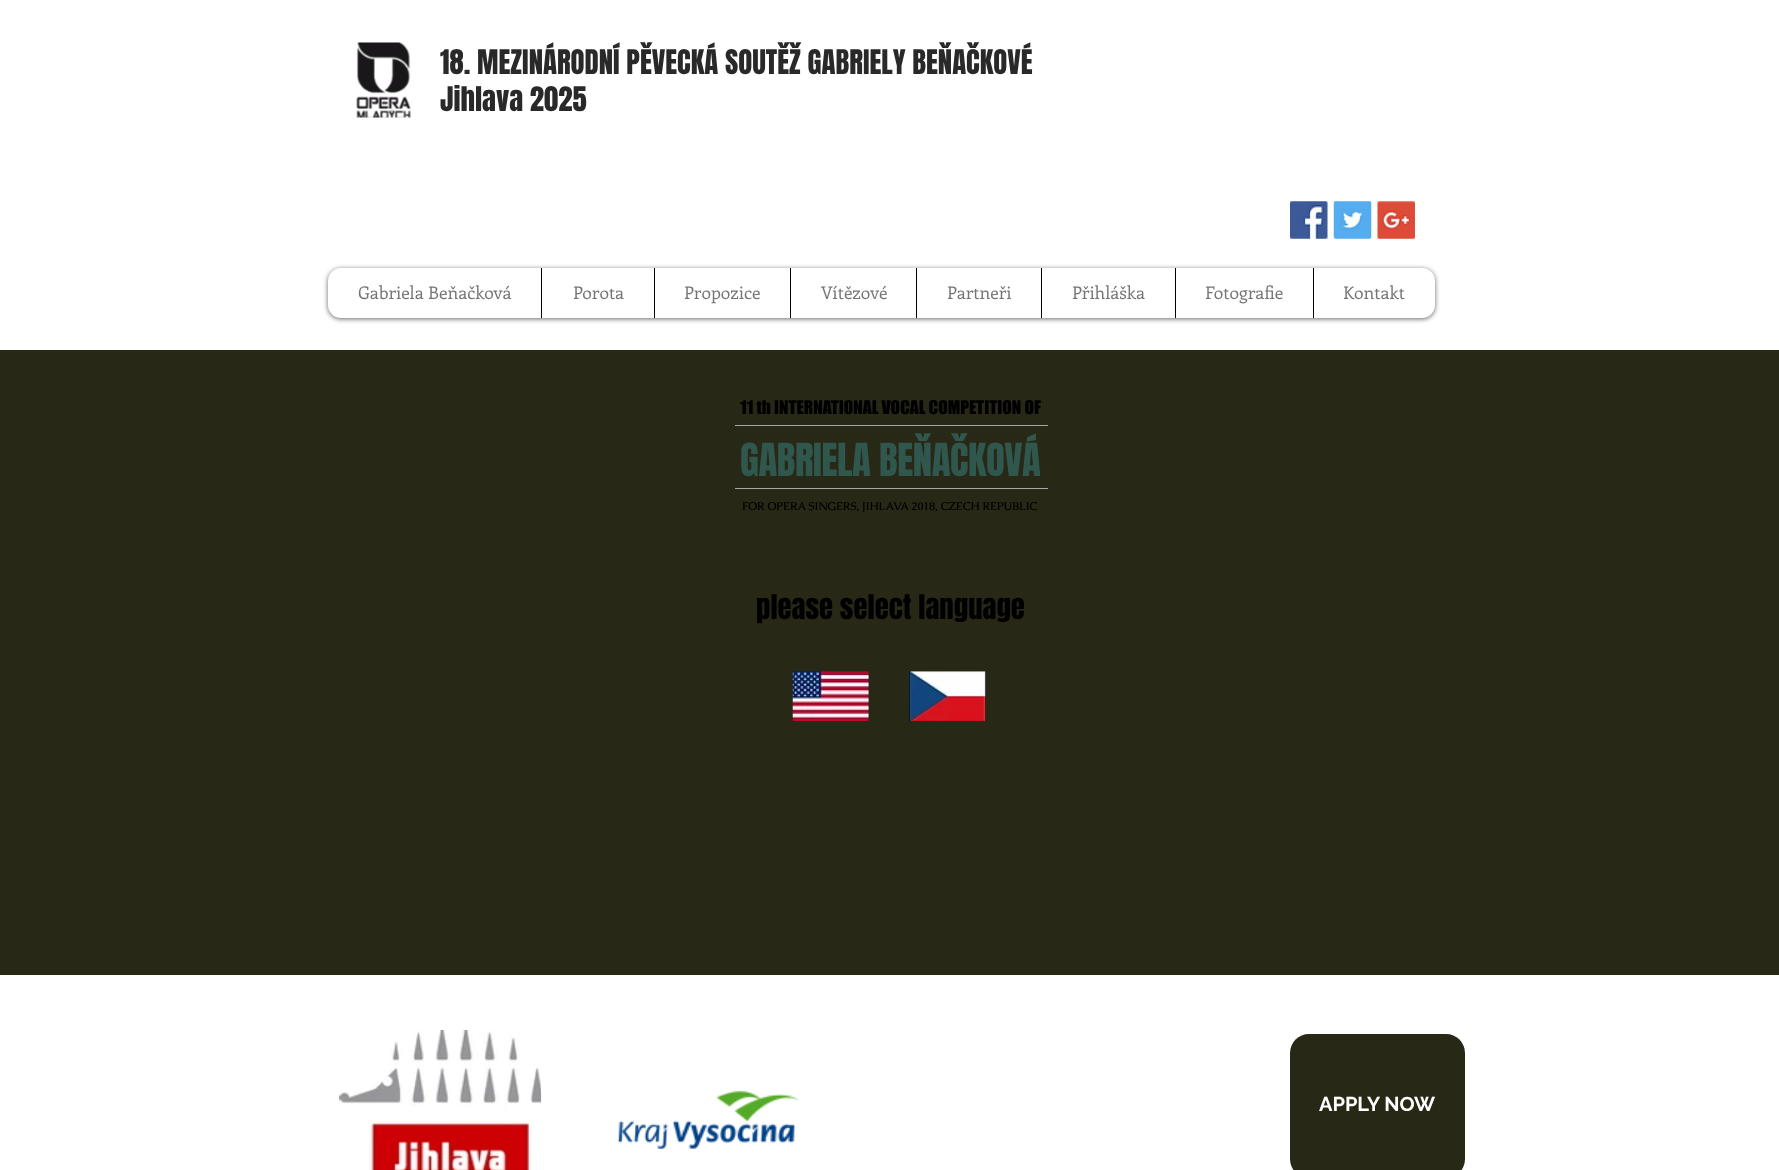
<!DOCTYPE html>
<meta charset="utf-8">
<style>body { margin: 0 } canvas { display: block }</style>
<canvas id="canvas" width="1779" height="1170"></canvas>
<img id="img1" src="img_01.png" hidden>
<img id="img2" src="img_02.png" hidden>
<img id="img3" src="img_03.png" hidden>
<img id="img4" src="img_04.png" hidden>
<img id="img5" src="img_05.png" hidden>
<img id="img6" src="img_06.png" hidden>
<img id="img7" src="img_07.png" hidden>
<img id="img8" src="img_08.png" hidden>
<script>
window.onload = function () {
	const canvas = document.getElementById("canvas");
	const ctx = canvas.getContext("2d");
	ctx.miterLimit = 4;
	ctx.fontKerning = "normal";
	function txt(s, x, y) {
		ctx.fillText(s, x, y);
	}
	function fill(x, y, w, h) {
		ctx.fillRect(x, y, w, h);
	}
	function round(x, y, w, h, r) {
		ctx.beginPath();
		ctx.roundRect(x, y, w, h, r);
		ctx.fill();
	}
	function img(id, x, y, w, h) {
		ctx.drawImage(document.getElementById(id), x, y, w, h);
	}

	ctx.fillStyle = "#282817";
	fill(0, 0, 1779, 1170);
	ctx.fillStyle = "#FFFFFF";
	fill(0, 0, 1779, 350);
	img("img1", 356, 42, 55, 76);
	img("img2", 1290, 201, 38, 38);
	img("img3", 1333, 201, 39, 38);
	img("img4", 1377, 201, 38, 38);
	ctx.fillStyle = "rgba(0, 0, 0, 0.6)";
	ctx.filter = "blur(2.5px)";
	ctx.beginPath();
	ctx.roundRect(328, 269, 1107, 50, 13);
	ctx.fill();
	ctx.filter = "none";
	ctx.fillStyle = "#FFFFFF";
	round(328, 268, 1107, 50, 13);
	ctx.fillStyle = "#000000";
	fill(541, 268, 1, 50);
	fill(654, 268, 1, 50);
	fill(790, 268, 1, 50);
	fill(916, 268, 1, 50);
	fill(1041, 268, 1, 50);
	fill(1175, 268, 1, 50);
	fill(1313, 268, 1, 50);
	ctx.fillStyle = "#A7A7A4";
	fill(735, 425, 313, 1);
	fill(735, 488, 313, 1);
	img("img5", 792, 671, 77, 51);
	img("img6", 909, 671, 77, 51);
	ctx.fillStyle = "#FFFFFF";
	fill(0, 975, 1779, 195);
	img("img7", 338, 1030, 204, 140);
	img("img8", 618, 1090, 181, 59);
	ctx.fillStyle = "#282817";
	round(1290, 1034, 175, 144, 19);
	ctx.font = "28.75px Anton";
	ctx.fillStyle = "#292929";
	txt("18. MEZINÁRODNÍ PĚVECKÁ SOUTĚŽ GABRIELY BEŇAČKOVÉ", 440, 74);
	txt("Jihlava 2025", 440, 111);
	ctx.font = "17.5px Enriqueta";
	ctx.fillStyle = "#757575";
	txt("Gabriela Beňačková", 358, 299);
	txt("Porota", 573, 299);
	txt("Propozice", 684, 299);
	txt("Vítězové", 821, 299);
	txt("Partneři", 947, 299);
	txt("Přihláška", 1072, 299);
	txt("Fotografie", 1205, 299);
	txt("Kontakt", 1343, 299);
	ctx.font = "17.5px 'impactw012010'";
	ctx.fillStyle = "#000000";
	txt("11 th INTERNATIONAL VOCAL COMPETITION OF", 740, 414);
	ctx.font = "bold 11.25px Caudex";
	txt("FOR OPERA SINGERS, JIHLAVA 2018, CZECH REPUBLIC", 742, 510);
	ctx.letterSpacing = "-0.4px";
	ctx.font = "38.75px Anton";
	ctx.fillStyle = "#30574E";
	txt("GABRIELA BEŇAČKOVÁ", 740, 476);
	ctx.letterSpacing = "0px";
	ctx.font = "28.75px Anton";
	ctx.fillStyle = "#000000";
	txt("please select language", 756, 619);
	ctx.font = "bold 20px Raleway";
	ctx.fillStyle = "#FFFFFF";
	txt("APPLY NOW", 1319, 1111);
};
</script>
